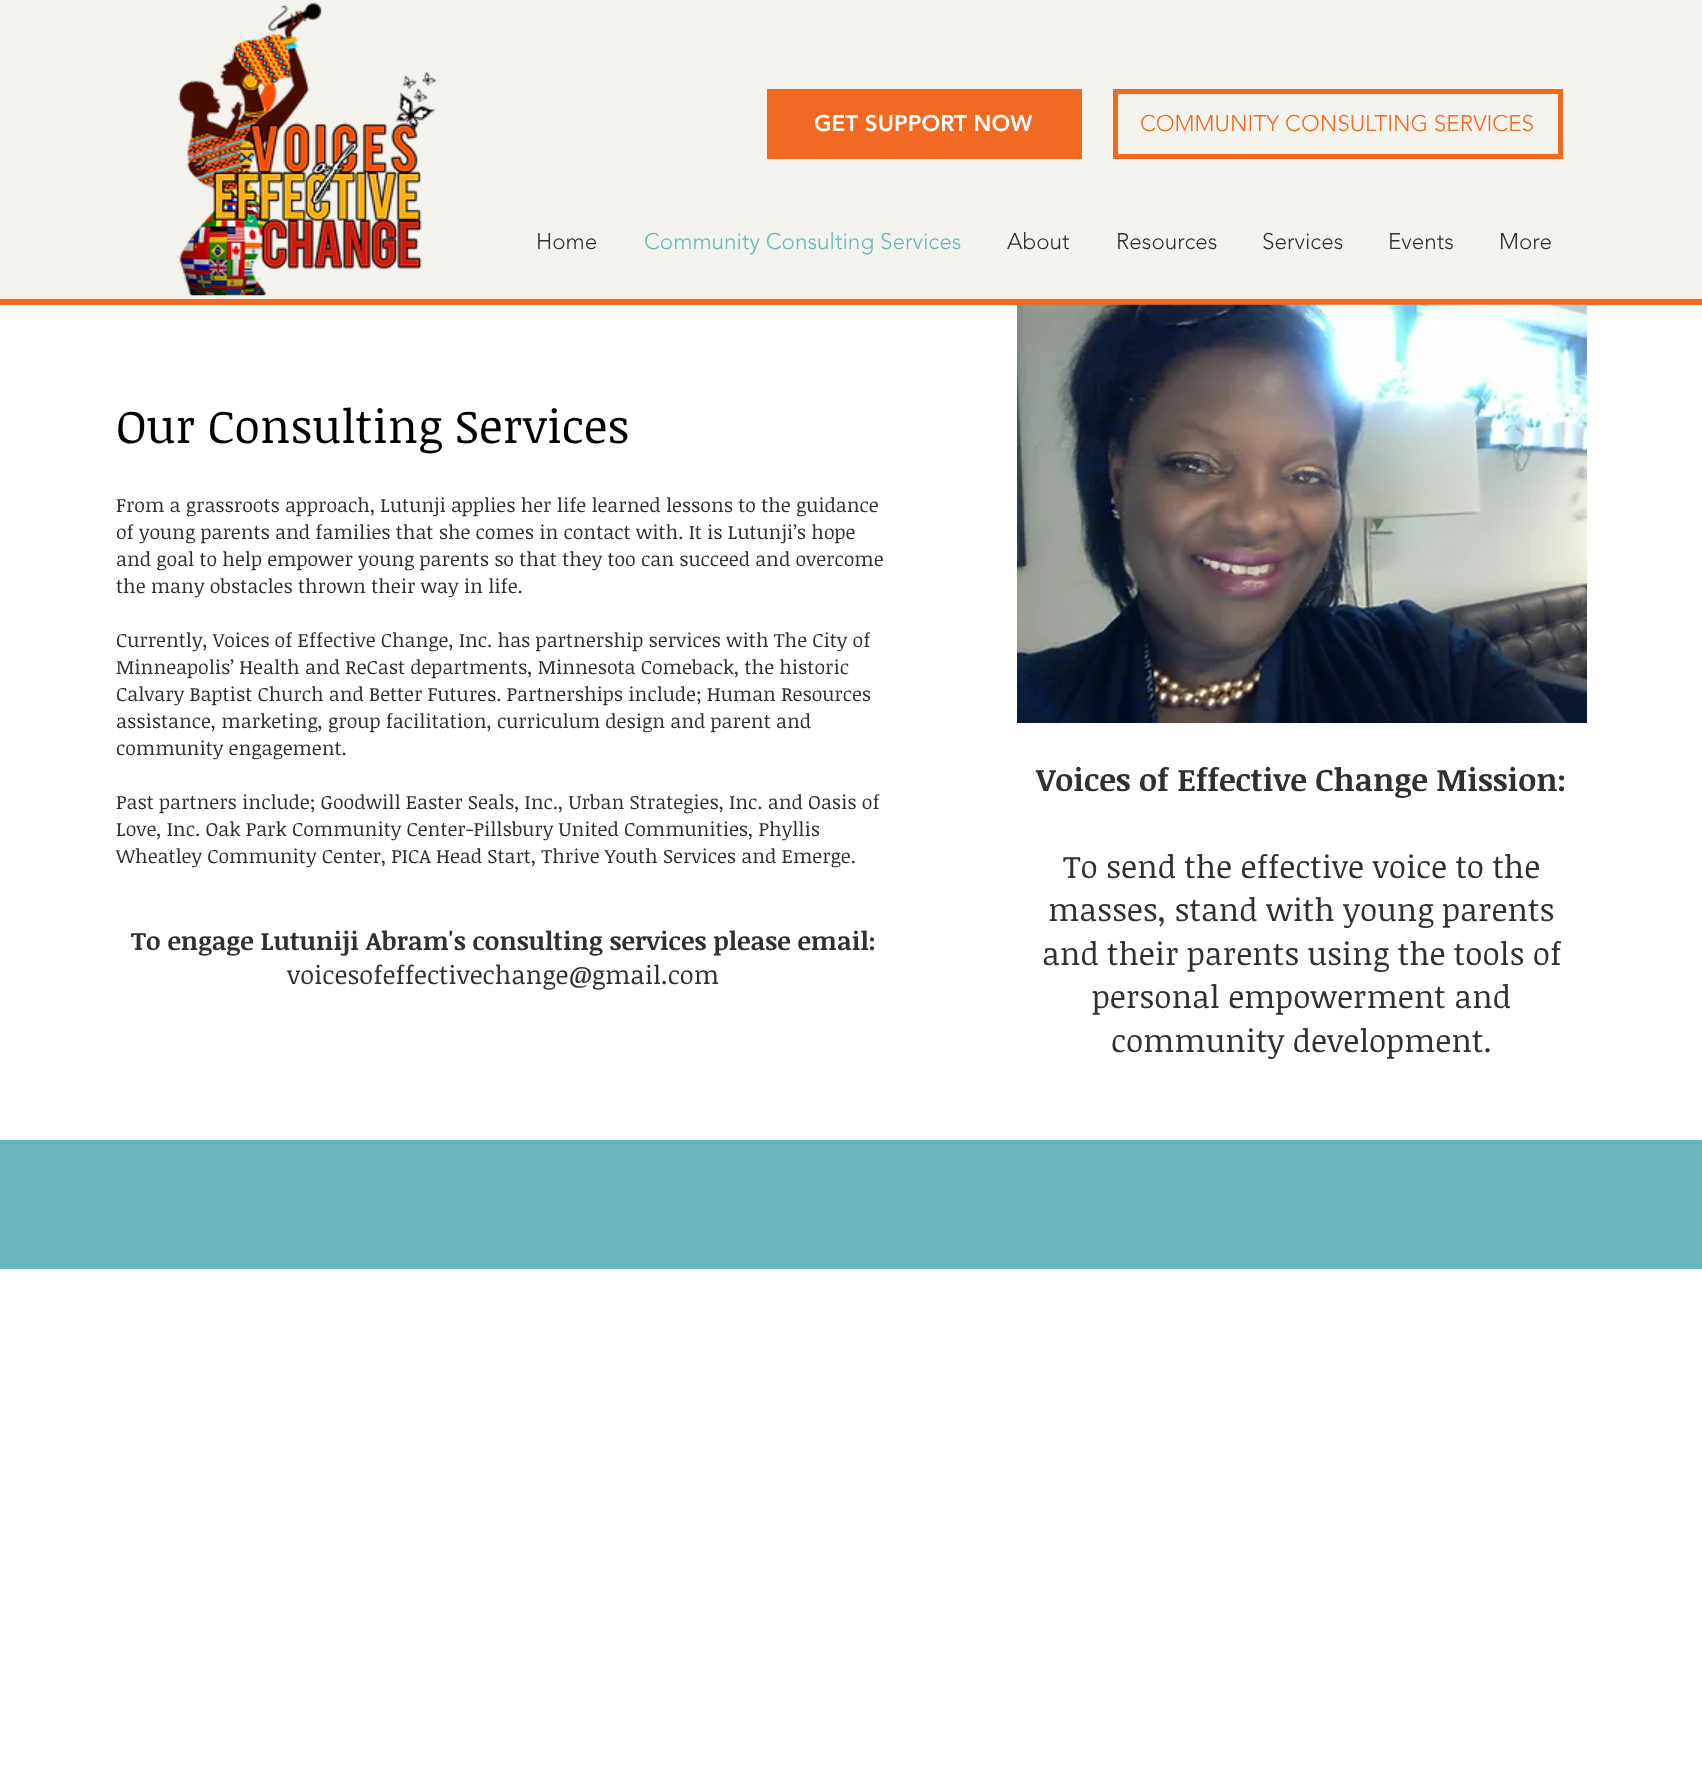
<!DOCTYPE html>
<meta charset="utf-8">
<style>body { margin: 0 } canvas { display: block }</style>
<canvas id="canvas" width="1702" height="1770"></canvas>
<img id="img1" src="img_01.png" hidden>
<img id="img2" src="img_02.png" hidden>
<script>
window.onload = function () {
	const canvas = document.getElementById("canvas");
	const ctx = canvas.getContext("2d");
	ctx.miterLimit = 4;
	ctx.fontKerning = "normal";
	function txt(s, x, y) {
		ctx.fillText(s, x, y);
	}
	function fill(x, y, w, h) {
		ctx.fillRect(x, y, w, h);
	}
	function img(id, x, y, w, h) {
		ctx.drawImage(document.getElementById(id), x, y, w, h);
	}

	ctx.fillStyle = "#FFFFFF";
	fill(0, 0, 1702, 1770);
	ctx.fillStyle = "#F4F3ED";
	fill(0, 0, 1702, 299);
	ctx.fillStyle = "#F26A21";
	fill(0, 299, 1702, 6);
	img("img1", 177, 2, 260, 294);
	fill(767, 89, 315, 70);
	ctx.strokeStyle = "#F26A21";
	ctx.lineWidth = 5;
	ctx.strokeRect(1115.5, 91.5, 445, 65);
	img("img2", 1017, 304, 570, 419);
	ctx.fillStyle = "#69B7BC";
	fill(0, 1140, 1702, 129);
	ctx.font = "900 22.5px 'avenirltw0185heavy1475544'";
	ctx.fillStyle = "#FFFFFF";
	txt("GET SUPPORT NOW", 814, 131);
	ctx.font = "300 22.5px 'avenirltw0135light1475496'";
	ctx.fillStyle = "#F26A21";
	txt("COMMUNITY CONSULTING SERVICES", 1140, 131);
	ctx.fillStyle = "#30302F";
	txt("Home", 536, 249);
	ctx.fillStyle = "#69B7BC";
	txt("Community Consulting Services", 644, 249);
	ctx.fillStyle = "#30302F";
	txt("About", 1007, 249);
	txt("Resources", 1116, 249);
	txt("Services", 1262, 249);
	txt("Events", 1388, 249);
	txt("More", 1499, 249);
	ctx.font = "46.5px Noticia Text";
	ctx.fillStyle = "#000000";
	txt("Our Consulting Services", 116, 443);
	ctx.font = "19.5px Noticia Text";
	ctx.fillStyle = "#30302F";
	txt("From a grassroots approach, Lutunji applies her life learned lessons to the guidance", 116, 512);
	txt("of young parents and families that she comes in contact with. It is Lutunji’s hope", 116, 539);
	txt("and goal to help empower young parents so that they too can succeed and overcome", 116, 566);
	txt("the many obstacles thrown their way in life.", 116, 593);
	txt("Currently, Voices of Effective Change, Inc. has partnership services with The City of", 116, 647);
	txt("Minneapolis’ Health and ReCast departments, Minnesota Comeback, the historic", 116, 674);
	txt("Calvary Baptist Church and Better Futures. Partnerships include; Human Resources", 116, 701);
	txt("assistance, marketing, group facilitation, curriculum design and parent and", 116, 728);
	txt("community engagement.", 116, 755);
	txt("Past partners include; Goodwill Easter Seals, Inc., Urban Strategies, Inc. and Oasis of", 116, 809);
	txt("Love, Inc. Oak Park Community Center-Pillsbury United Communities, Phyllis", 116, 836);
	txt("Wheatley Community Center, PICA Head Start, Thrive Youth Services and Emerge.", 116, 863);
	ctx.font = "bold 25.5px Noticia Text";
	txt("To engage Lutuniji Abram's consulting services please email:", 131, 950);
	ctx.font = "25.5px Noticia Text";
	txt("voicesofeffectivechange@gmail.com", 287, 984);
	ctx.font = "bold 31.5px Noticia Text";
	txt("Voices of Effective Change Mission:", 1036, 791);
	ctx.font = "31.5px Noticia Text";
	txt("To send the effective voice to the", 1063, 878);
	txt("masses, stand with young parents", 1048, 921);
	txt("and their parents using the tools of", 1042, 965);
	txt("personal empowerment and", 1092, 1008);
	txt("community development.", 1111, 1052);
};
</script>
